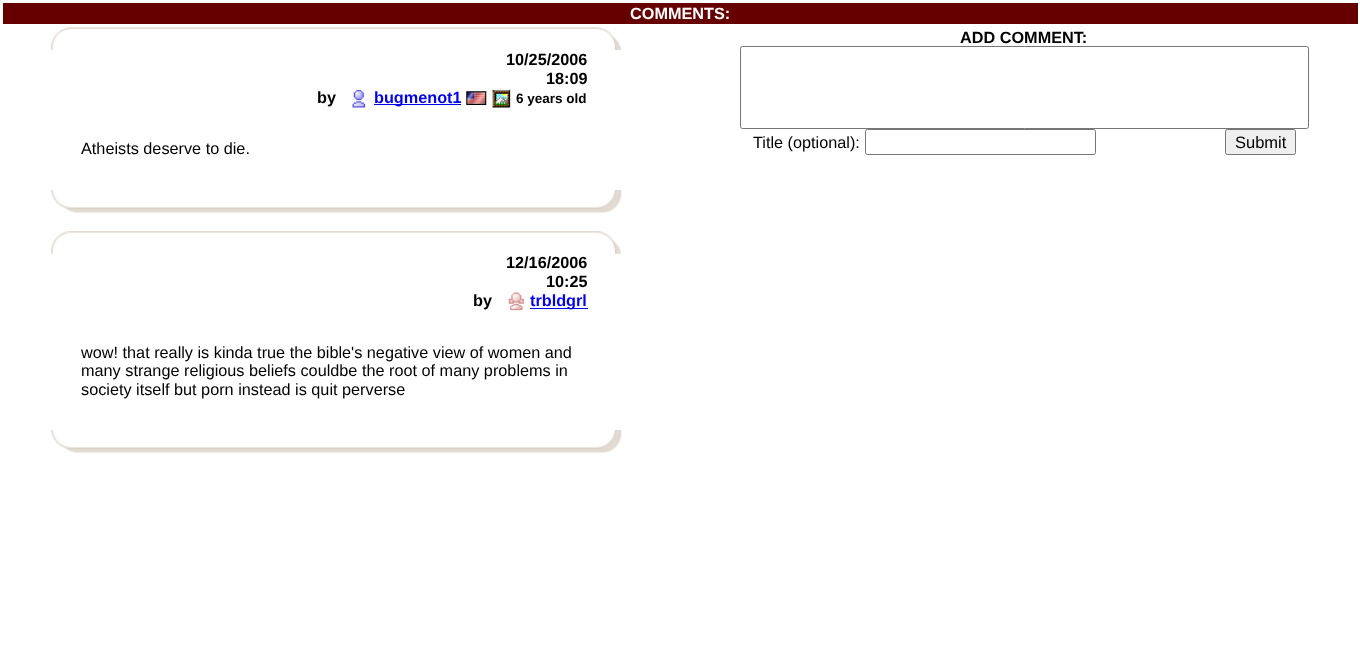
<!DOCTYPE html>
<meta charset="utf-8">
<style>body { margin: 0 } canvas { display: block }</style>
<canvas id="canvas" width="1360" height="656"></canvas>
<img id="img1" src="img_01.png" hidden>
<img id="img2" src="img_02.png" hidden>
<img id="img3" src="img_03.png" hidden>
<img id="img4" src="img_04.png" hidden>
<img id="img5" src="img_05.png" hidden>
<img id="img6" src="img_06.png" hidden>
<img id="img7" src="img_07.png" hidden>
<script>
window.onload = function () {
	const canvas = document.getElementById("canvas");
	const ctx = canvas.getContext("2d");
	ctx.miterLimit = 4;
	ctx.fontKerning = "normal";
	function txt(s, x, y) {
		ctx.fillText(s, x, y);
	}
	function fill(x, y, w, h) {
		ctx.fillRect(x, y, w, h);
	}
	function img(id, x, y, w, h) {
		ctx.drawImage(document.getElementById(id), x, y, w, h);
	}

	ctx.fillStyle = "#FFFFFF";
	fill(0, 0, 1360, 656);
	ctx.fillStyle = "#660000";
	fill(3, 3, 1355, 21);
	img("img1", 51, 27, 571, 23);
	img("img2", 352, 89, 14, 19);
	ctx.fillStyle = "#0000EE";
	fill(374, 104, 87, 1);
	img("img3", 466, 91, 21, 14);
	img("img4", 492, 89, 19, 19);
	img("img5", 51, 190, 571, 23);
	img("img6", 51, 231, 571, 23);
	img("img7", 508, 292, 16, 19);
	fill(530, 308, 58, 1);
	img("img5", 51, 430, 571, 23);
	ctx.beginPath();
	ctx.roundRect(740.5, 46.5, 568, 82, 2);
	ctx.strokeStyle = "#767676";
	ctx.stroke();
	ctx.beginPath();
	ctx.roundRect(865.5, 129.5, 230, 25, 2);
	ctx.stroke();
	ctx.fillStyle = "#EFEFEF";
	ctx.beginPath();
	ctx.roundRect(1225.5, 129.5, 70, 25, 2);
	ctx.fill();
	ctx.stroke();
	ctx.font = "bold 16.25px Liberation Sans";
	ctx.fillStyle = "#FFFFFF";
	txt("COMMENTS:", 630, 19);
	ctx.fillStyle = "#000000";
	txt("10/25/2006", 506, 65);
	txt("18:09", 546, 84);
	txt("by", 317, 103);
	ctx.fillStyle = "#0000EE";
	txt("bugmenot1", 374, 103);
	ctx.font = "bold 13.5px Liberation Sans";
	ctx.fillStyle = "#000000";
	txt("6 years old", 516, 103);
	ctx.font = "16.25px Liberation Sans";
	txt("Atheists deserve to die.", 81, 154);
	ctx.font = "bold 16.25px Liberation Sans";
	txt("12/16/2006", 506, 268);
	txt("10:25", 546, 287);
	txt("by", 473, 306);
	ctx.fillStyle = "#0000EE";
	txt("trbldgrl", 530, 306);
	ctx.font = "16.25px Liberation Sans";
	ctx.fillStyle = "#000000";
	txt("wow! that really is kinda true the bible's negative view of women and", 81, 358);
	txt("many strange religious beliefs couldbe the root of many problems in", 81, 376);
	txt("society itself but porn instead is quit perverse", 81, 395);
	ctx.font = "bold 16.25px Liberation Sans";
	txt("ADD COMMENT:", 960, 43);
	ctx.font = "16.25px Liberation Sans";
	txt("Title (optional):", 753, 148);
	ctx.font = "16.5px Liberation Sans";
	txt("Submit", 1235, 148);
};
</script>
